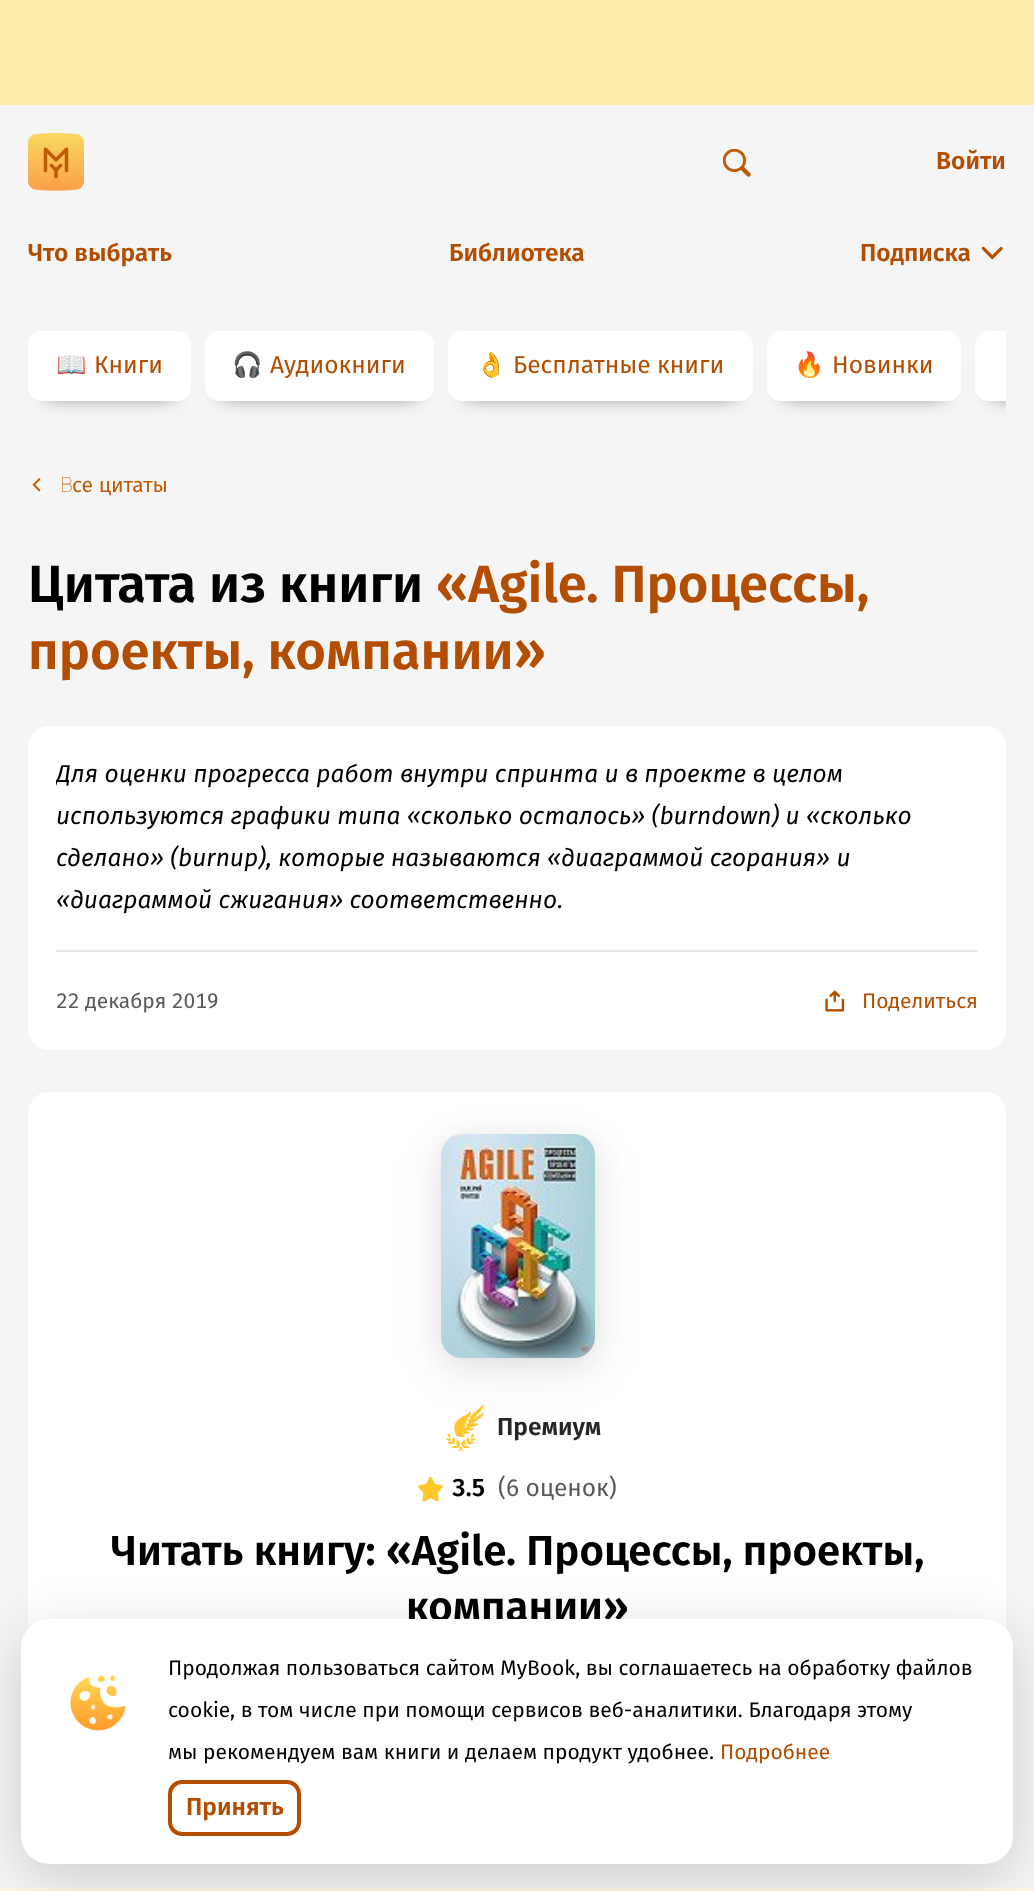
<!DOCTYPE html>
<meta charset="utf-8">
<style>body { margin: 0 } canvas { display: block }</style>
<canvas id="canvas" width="1034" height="1891"></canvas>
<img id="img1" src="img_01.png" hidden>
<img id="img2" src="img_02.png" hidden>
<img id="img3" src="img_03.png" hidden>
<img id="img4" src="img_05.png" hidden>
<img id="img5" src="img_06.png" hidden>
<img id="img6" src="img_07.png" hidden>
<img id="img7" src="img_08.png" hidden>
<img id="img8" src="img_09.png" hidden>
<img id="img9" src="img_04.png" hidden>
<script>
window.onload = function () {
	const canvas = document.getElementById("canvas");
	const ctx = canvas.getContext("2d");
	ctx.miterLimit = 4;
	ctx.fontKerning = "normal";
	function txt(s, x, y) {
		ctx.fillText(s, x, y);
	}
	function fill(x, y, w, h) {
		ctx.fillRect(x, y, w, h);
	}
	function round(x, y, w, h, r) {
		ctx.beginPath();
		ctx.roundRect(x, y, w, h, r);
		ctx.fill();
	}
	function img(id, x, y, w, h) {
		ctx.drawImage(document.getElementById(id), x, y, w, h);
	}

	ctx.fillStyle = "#F5F5F5";
	fill(0, 0, 1034, 1891);
	ctx.fillStyle = "#FFEEA9";
	fill(0, 0, 1034, 105);
	img("img1", 28, 133, 56, 58);
	img("img2", 723, 149, 28, 28);
	img("img3", 981, 246, 22, 14);
	ctx.fillStyle = "rgba(0, 0, 0, 0.5)";
	ctx.filter = "blur(9px)";
	ctx.beginPath();
	ctx.rect(46, 362, 127, 35);
	ctx.fill();
	ctx.filter = "none";
	ctx.fillStyle = "#FFFFFF";
	round(28, 331, 163, 70, 14);
	ctx.fillStyle = "rgba(0, 0, 0, 0.5)";
	ctx.filter = "blur(9px)";
	ctx.beginPath();
	ctx.rect(222, 362, 195, 35);
	ctx.fill();
	ctx.filter = "none";
	ctx.fillStyle = "#FFFFFF";
	round(205, 331, 229, 70, 14);
	ctx.fillStyle = "rgba(0, 0, 0, 0.5)";
	ctx.filter = "blur(9px)";
	ctx.beginPath();
	ctx.rect(466, 362, 269, 35);
	ctx.fill();
	ctx.filter = "none";
	ctx.fillStyle = "#FFFFFF";
	round(448, 331, 305, 70, 14);
	ctx.fillStyle = "rgba(0, 0, 0, 0.5)";
	ctx.filter = "blur(9px)";
	ctx.beginPath();
	ctx.rect(784, 362, 159, 35);
	ctx.fill();
	ctx.filter = "none";
	ctx.fillStyle = "#FFFFFF";
	round(767, 331, 194, 70, 14);
	ctx.save();
	ctx.beginPath();
	ctx.rect(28, 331, 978, 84);
	ctx.clip();
	ctx.fillStyle = "rgba(0, 0, 0, 0.5)";
	ctx.filter = "blur(9px)";
	ctx.beginPath();
	ctx.rect(992, 362, 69, 35);
	ctx.fill();
	ctx.filter = "none";
	ctx.restore();
	ctx.beginPath();
	ctx.roundRect(975, 331, 31, 70, [14, 0, 0, 14]);
	ctx.fill();
	round(28, 1092, 978, 740, 21);
	ctx.fillStyle = "#FFF7E6";
	fill(0, 1888, 1034, 3);
	ctx.fillStyle = "rgba(0, 0, 0, 0.16)";
	ctx.filter = "blur(28px)";
	ctx.beginPath();
	ctx.roundRect(21, 1633, 992, 245, 28);
	ctx.fill();
	ctx.filter = "none";
	img("img4", 32, 478, 9, 14);
	ctx.fillStyle = "#FFFFFF";
	round(28, 726, 978, 324, 21);
	ctx.fillStyle = "#E8E8E8";
	fill(56, 950, 922, 2);
	img("img5", 825, 990, 20, 22);
	ctx.fillStyle = "rgba(17, 17, 26, 0.05)";
	ctx.filter = "blur(28px)";
	ctx.beginPath();
	ctx.roundRect(441, 1148, 154, 224, 21);
	ctx.fill();
	ctx.filter = "none";
	ctx.fillStyle = "rgba(17, 17, 26, 0.1)";
	ctx.filter = "blur(14px)";
	ctx.beginPath();
	ctx.roundRect(441, 1141, 154, 224, 21);
	ctx.fill();
	ctx.filter = "none";
	img("img6", 441, 1134, 154, 224);
	img("img7", 446, 1404, 38, 48);
	img("img8", 418, 1477, 25, 25);
	ctx.font = "600 24.5px Fira Sans";
	ctx.fillStyle = "#B34D00";
	txt("Войти", 936, 169);
	txt("Что выбрать", 28, 261);
	txt("Библиотека", 449, 261);
	txt("Подписка", 860, 261);
	ctx.font = "24.5px Noto Color Emoji";
	ctx.fillStyle = "#FFC72C";
	txt("📖", 56, 373);
	ctx.font = "24.5px Fira Sans";
	ctx.fillStyle = "#B34D00";
	txt("Книги", 94, 373);
	ctx.font = "24.5px Noto Color Emoji";
	ctx.fillStyle = "#FFC72C";
	txt("🎧", 232, 373);
	ctx.font = "24.5px Fira Sans";
	ctx.fillStyle = "#B34D00";
	txt("Аудиокниги", 270, 373);
	ctx.font = "24.5px Noto Color Emoji";
	ctx.fillStyle = "#FFC72C";
	txt("👌", 476, 373);
	ctx.font = "24.5px Fira Sans";
	ctx.fillStyle = "#B34D00";
	txt("Бесплатные книги", 513, 373);
	ctx.font = "24.5px Noto Color Emoji";
	ctx.fillStyle = "#FFC72C";
	txt("🔥", 794, 373);
	ctx.font = "24.5px Fira Sans";
	ctx.fillStyle = "#B34D00";
	txt("Новинки", 832, 373);
	ctx.font = "100 21px Noto Sans";
	ctx.fillStyle = "#BE5B04";
	txt("В", 60, 492);
	ctx.font = "21px Fira Sans";
	txt("се цитаты", 72, 492);
	ctx.font = "600 52.5px Fira Sans";
	ctx.fillStyle = "#000000";
	txt("Цитата из книги", 28, 602);
	ctx.fillStyle = "#B34D00";
	txt("«Agile. Процессы,", 436, 602);
	txt("проекты, компании»", 28, 669);
	ctx.save();
	ctx.beginPath();
	ctx.rect(56, 754, 922, 168);
	ctx.clip();
	ctx.font = "italic 24.5px Fira Sans";
	ctx.fillStyle = "#000000";
	txt("Для оценки прогресса работ внутри спринта и в проекте в целом", 56, 782);
	ctx.restore();
	ctx.font = "italic 24.5px Fira Sans";
	ctx.fillStyle = "#000000";
	txt("используются графики типа «сколько осталось» (burndown) и «сколько", 56, 824);
	txt("сделано» (burnup), которые называются «диаграммой сгорания» и", 56, 866);
	txt("«диаграммой сжигания» соответственно.", 56, 908);
	ctx.font = "21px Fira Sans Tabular";
	ctx.fillStyle = "#595959";
	txt("22 декабря 2019", 56, 1008);
	ctx.font = "21px Fira Sans";
	ctx.fillStyle = "#B34D00";
	txt("Поделиться", 862, 1008);
	ctx.font = "600 24.5px Fira Sans";
	ctx.fillStyle = "#262626";
	txt("Премиум", 497, 1435);
	ctx.font = "600 24.5px Fira Sans Tabular";
	ctx.fillStyle = "#000000";
	txt("3.5", 452, 1496);
	ctx.font = "24.5px Fira Sans";
	ctx.fillStyle = "#595959";
	txt("(6 оценок)", 498, 1496);
	ctx.font = "600 42px Fira Sans";
	ctx.fillStyle = "#000000";
	txt("Читать книгу: «Agile. Процессы, проекты,", 111, 1565);
	txt("компании»", 406, 1621);
	ctx.fillStyle = "#FFFFFF";
	round(21, 1619, 992, 245, 28);
	ctx.beginPath();
	ctx.roundRect(170, 1782, 129, 52, 12);
	ctx.strokeStyle = "#B34D00";
	ctx.lineWidth = 4;
	ctx.stroke();
	ctx.font = "600 24.5px Fira Sans";
	ctx.fillStyle = "#B34D00";
	txt("Принять", 186, 1815);
	ctx.font = "21px Fira Sans";
	txt("Подробнее", 720, 1759);
	ctx.fillStyle = "#000000";
	txt("мы рекомендуем вам книги и делаем продукт удобнее.", 168, 1759);
	txt("cookie, в том числе при помощи сервисов веб-аналитики. Благодаря этому", 168, 1717);
	txt("Продолжая пользоваться сайтом MyBook, вы соглашаетесь на обработку файлов", 168, 1675);
	img("img9", 70, 1674, 56, 57);
};
</script>
